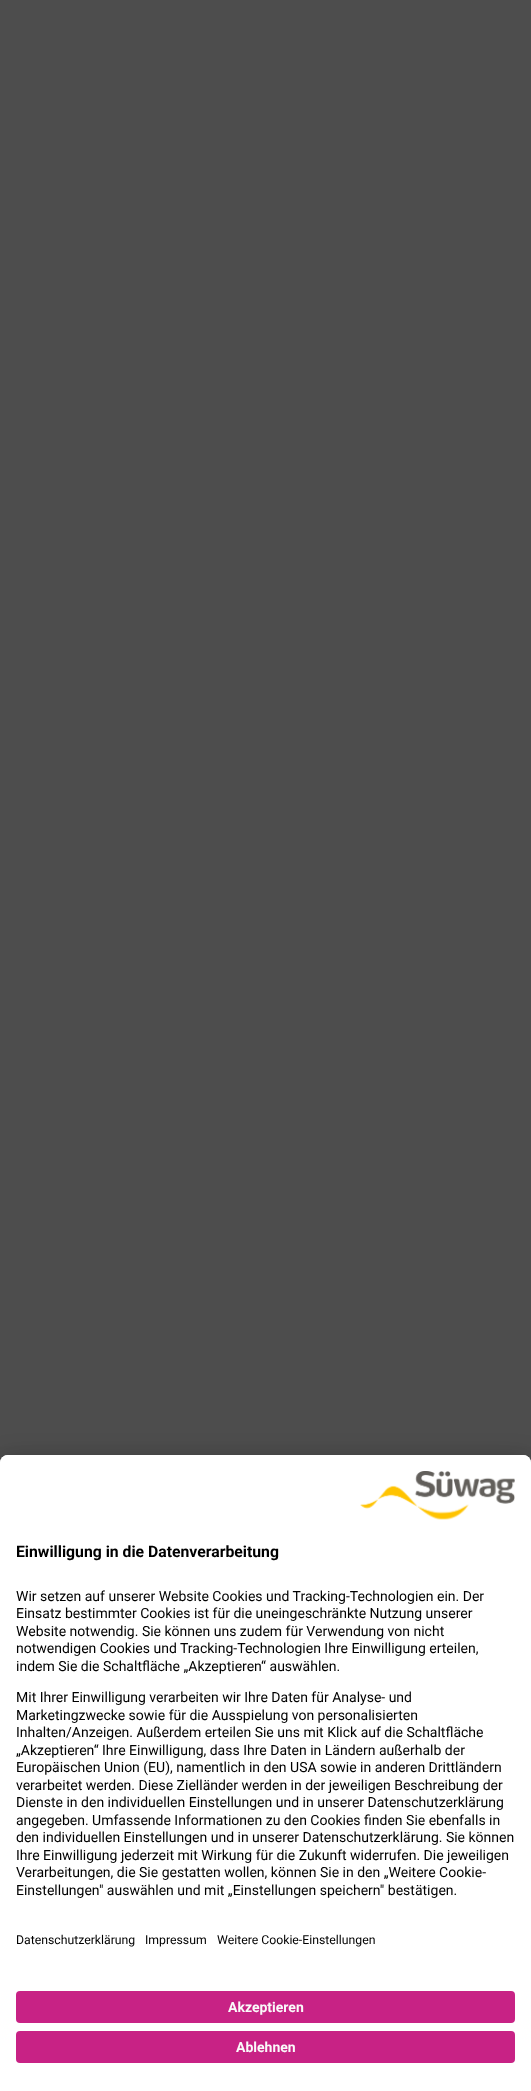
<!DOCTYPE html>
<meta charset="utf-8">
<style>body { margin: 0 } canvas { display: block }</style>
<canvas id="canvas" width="531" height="2091"></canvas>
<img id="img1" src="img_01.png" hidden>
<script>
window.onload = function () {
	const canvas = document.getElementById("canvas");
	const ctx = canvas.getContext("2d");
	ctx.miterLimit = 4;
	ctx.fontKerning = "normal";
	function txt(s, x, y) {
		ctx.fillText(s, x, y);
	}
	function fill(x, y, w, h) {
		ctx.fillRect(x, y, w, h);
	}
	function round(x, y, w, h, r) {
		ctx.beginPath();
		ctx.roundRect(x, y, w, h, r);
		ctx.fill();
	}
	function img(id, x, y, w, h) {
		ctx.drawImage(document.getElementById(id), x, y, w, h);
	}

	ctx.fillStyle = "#4D4D4D";
	fill(0, 0, 531, 2091);
	ctx.fillStyle = "rgba(0, 0, 0, 0.3)";
	ctx.filter = "blur(14px)";
	ctx.beginPath();
	ctx.roundRect(0, 1475, 531, 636, 8);
	ctx.fill();
	ctx.filter = "none";
	ctx.fillStyle = "rgba(0, 0, 0, 0.22)";
	ctx.filter = "blur(13px)";
	ctx.beginPath();
	ctx.roundRect(0, 1460, 531, 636, 8);
	ctx.fill();
	ctx.filter = "none";
	ctx.fillStyle = "#FFFFFF";
	ctx.beginPath();
	ctx.roundRect(0, 1455, 531, 636, [8, 8, 0, 0]);
	ctx.fill();
	ctx.beginPath();
	ctx.roundRect(0, 1455, 531, 524, [8, 8, 0, 0]);
	ctx.fill();
	img("img1", 360, 1471, 155, 49);
	ctx.fillStyle = "#C82285";
	round(16, 1991, 499, 32, 4);
	round(16, 2031, 499, 32, 4);
	ctx.font = "bold 15.75px Roboto";
	ctx.fillStyle = "#000000";
	txt("Einwilligung in die Datenverarbeitung", 16, 1557);
	ctx.font = "14px Roboto";
	txt("Wir setzen auf unserer Website Cookies und Tracking-Technologien ein. Der", 16, 1601);
	txt("Einsatz bestimmter Cookies ist für die uneingeschränkte Nutzung unserer", 16, 1618);
	txt("Website notwendig. Sie können uns zudem für Verwendung von nicht", 16, 1636);
	txt("notwendigen Cookies und Tracking-Technologien Ihre Einwilligung erteilen,", 16, 1653);
	txt("indem Sie die Schaltfläche „Akzeptieren“ auswählen.", 16, 1671);
	txt("Mit Ihrer Einwilligung verarbeiten wir Ihre Daten für Analyse- und", 16, 1702);
	txt("Marketingzwecke sowie für die Ausspielung von personalisierten", 16, 1720);
	txt("Inhalten/Anzeigen. Außerdem erteilen Sie uns mit Klick auf die Schaltfläche", 16, 1737);
	txt("„Akzeptieren“ Ihre Einwilligung, dass Ihre Daten in Ländern außerhalb der", 16, 1755);
	txt("Europäischen Union (EU), namentlich in den USA sowie in anderen Drittländern", 16, 1772);
	txt("verarbeitet werden. Diese Zielländer werden in der jeweiligen Beschreibung der", 16, 1790);
	txt("Dienste in den individuellen Einstellungen und in unserer Datenschutzerklärung", 16, 1807);
	txt("angegeben. Umfassende Informationen zu den Cookies finden Sie ebenfalls in", 16, 1825);
	txt("den individuellen Einstellungen und in unserer Datenschutzerklärung. Sie können", 16, 1842);
	txt("Ihre Einwilligung jederzeit mit Wirkung für die Zukunft widerrufen. Die jeweiligen", 16, 1860);
	txt("Verarbeitungen, die Sie gestatten wollen, können Sie in den „Weitere Cookie-", 16, 1877);
	txt("Einstellungen\" auswählen und mit „Einstellungen speichern\" bestätigen.", 16, 1895);
	ctx.font = "12.25px Roboto";
	txt("Datenschutzerklärung", 16, 1944);
	txt("Impressum", 145, 1944);
	txt("Weitere Cookie-Einstellungen", 217, 1944);
	ctx.font = "bold 14px Roboto";
	ctx.fillStyle = "#FAFAFA";
	txt("Akzeptieren", 228, 2012);
	txt("Ablehnen", 236, 2052);
};
</script>
